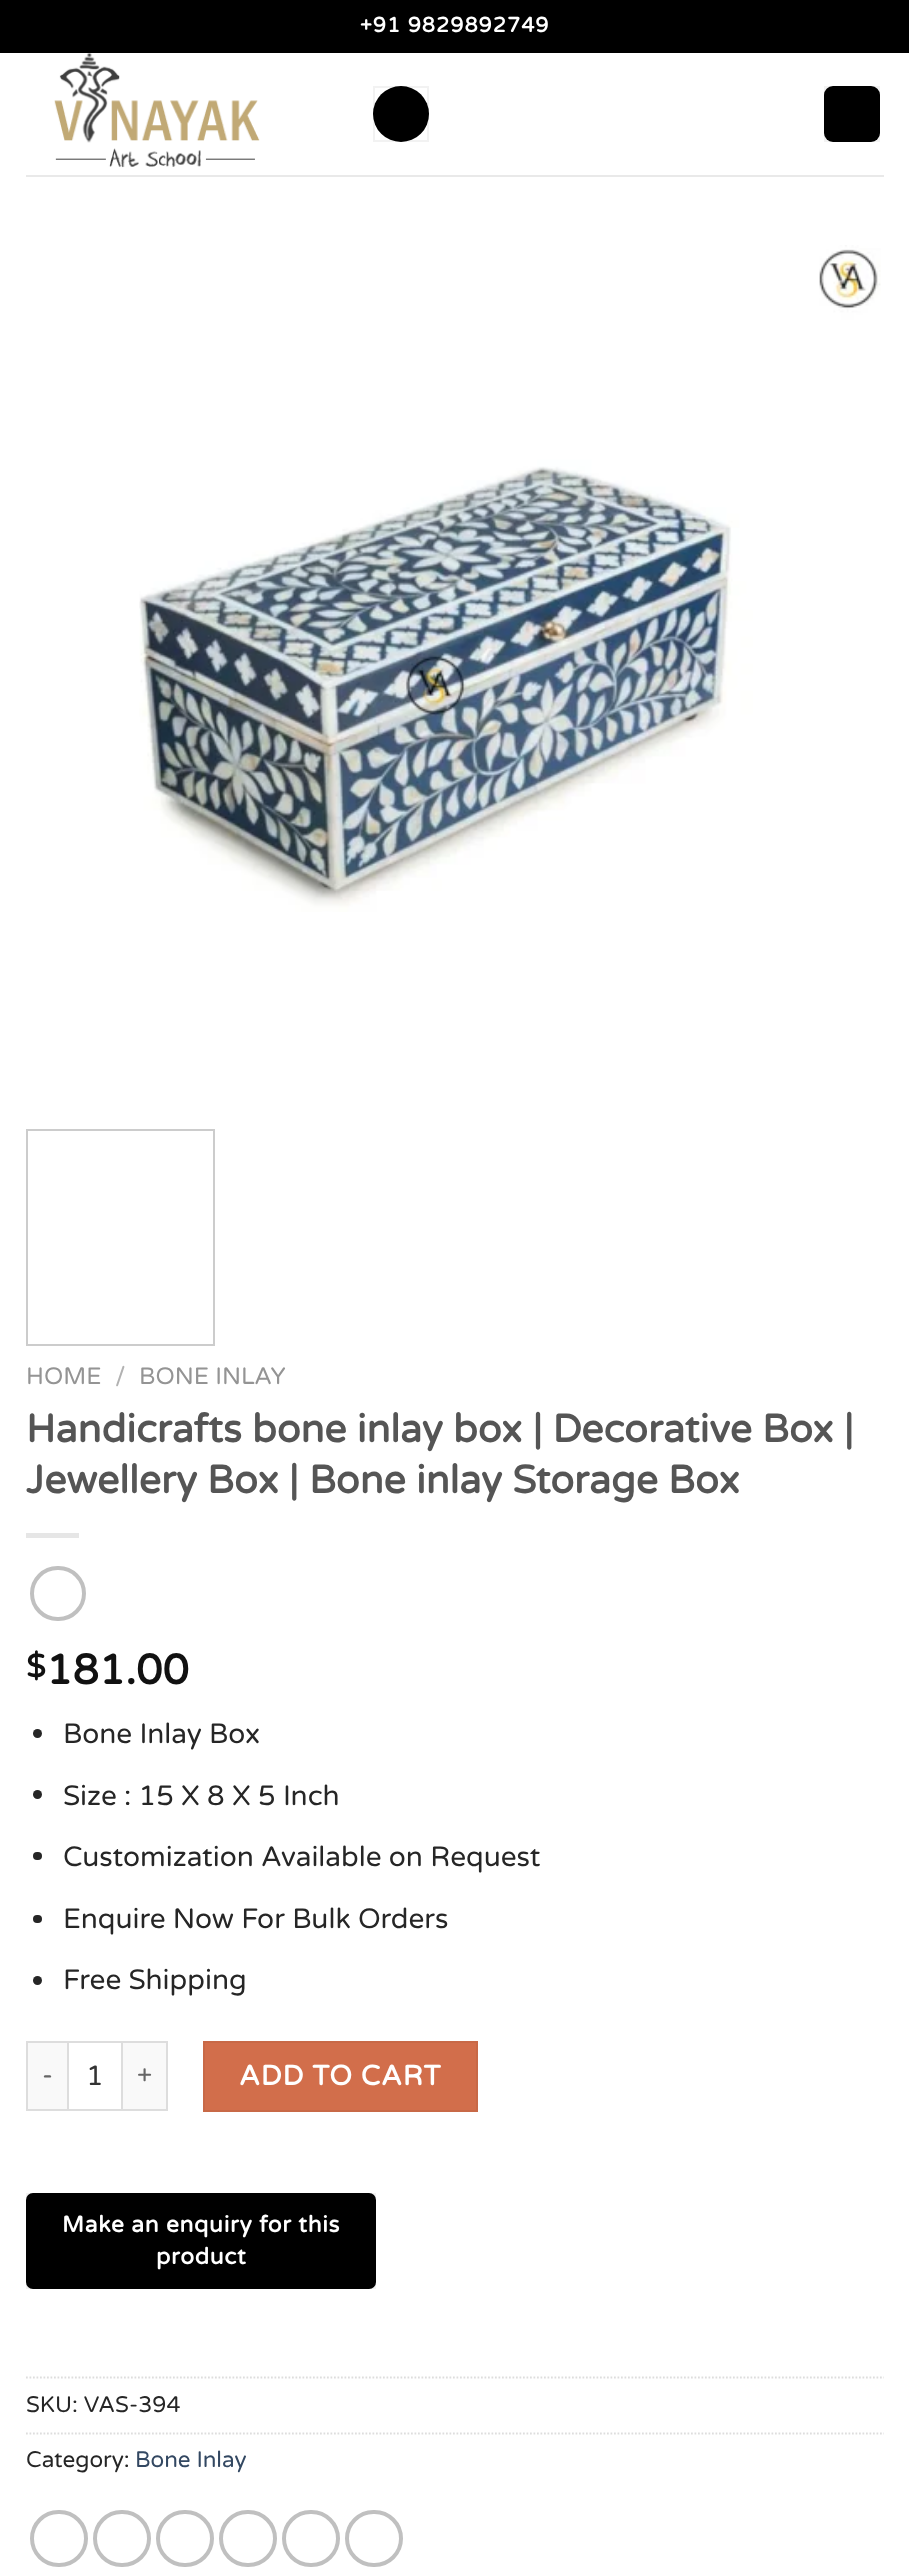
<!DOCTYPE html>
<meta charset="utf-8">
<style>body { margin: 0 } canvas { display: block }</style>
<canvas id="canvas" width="909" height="2569"></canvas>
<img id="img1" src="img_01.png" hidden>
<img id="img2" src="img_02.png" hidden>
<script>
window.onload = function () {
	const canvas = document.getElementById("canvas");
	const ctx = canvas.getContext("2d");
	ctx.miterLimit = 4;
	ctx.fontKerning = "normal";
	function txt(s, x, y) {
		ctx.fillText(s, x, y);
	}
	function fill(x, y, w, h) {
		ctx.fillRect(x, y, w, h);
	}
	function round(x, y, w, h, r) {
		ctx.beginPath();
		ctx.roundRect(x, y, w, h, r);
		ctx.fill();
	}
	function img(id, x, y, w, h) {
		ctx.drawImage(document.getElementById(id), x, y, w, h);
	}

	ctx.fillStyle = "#FFFFFF";
	fill(0, 0, 909, 2569);
	ctx.fillStyle = "#000000";
	fill(0, 0, 909, 53);
	img("img1", 54, 53, 206, 115);
	ctx.beginPath();
	ctx.arc(401, 114, 28, 0, Math.PI * 2);
	ctx.fill();
	ctx.strokeStyle = "rgba(0, 0, 0, 0.05)";
	ctx.lineWidth = 2;
	ctx.strokeRect(374, 87, 54, 54);
	round(824, 86, 56, 56, 9);
	ctx.strokeRect(825, 87, 54, 54);
	ctx.fillStyle = "#E9E9E9";
	fill(26, 175, 858, 2);
	img("img2", 139, 245, 742, 667);
	ctx.strokeStyle = "#CCCCCC";
	ctx.strokeRect(27, 1130, 187, 215);
	ctx.fillStyle = "#E6E6E6";
	fill(26, 1533, 53, 5);
	ctx.beginPath();
	ctx.roundRect(32, 1568, 52, 51, 25.5);
	ctx.strokeStyle = "#C0C0C0";
	ctx.lineWidth = 4;
	ctx.stroke();
	ctx.fillStyle = "#262626";
	ctx.beginPath();
	ctx.arc(37.5, 1733.5, 4.5, 0, Math.PI * 2);
	ctx.fill();
	ctx.beginPath();
	ctx.arc(37.5, 1794.5, 4.5, 0, Math.PI * 2);
	ctx.fill();
	round(33, 1852, 9, 8, 4);
	round(33, 1915, 9, 8, 4);
	ctx.beginPath();
	ctx.arc(37.5, 1980.5, 4.5, 0, Math.PI * 2);
	ctx.fill();
	ctx.fillStyle = "#F9F9F9";
	fill(28, 2043, 39, 66);
	ctx.fillStyle = "#DDDDDD";
	fill(26, 2041, 41, 2);
	fill(26, 2109, 41, 2);
	fill(26, 2041, 2, 70);
	ctx.strokeStyle = "#DDDDDD";
	ctx.lineWidth = 2;
	ctx.strokeRect(68, 2042, 54, 68);
	ctx.fillStyle = "#F9F9F9";
	fill(123, 2043, 43, 66);
	ctx.fillStyle = "#DDDDDD";
	fill(123, 2041, 45, 2);
	fill(166, 2041, 2, 70);
	fill(123, 2109, 45, 2);
	ctx.fillStyle = "#D26E4B";
	ctx.beginPath();
	ctx.rect(204, 2042, 273, 69);
	ctx.fill();
	ctx.strokeStyle = "#C86947";
	ctx.stroke();
	ctx.fillStyle = "#000000";
	round(26, 2193, 350, 96, 7);
	ctx.strokeStyle = "rgba(0, 0, 0, 0.05)";
	ctx.strokeRect(27, 2194, 348, 94);
	ctx.beginPath();
	ctx.moveTo(26, 2377.5);
	ctx.lineTo(884, 2377.5);
	ctx.strokeStyle = "#DDDDDD";
	ctx.lineWidth = 1.8;
	ctx.setLineDash([1.75, 1.75]);
	ctx.stroke();
	ctx.beginPath();
	ctx.moveTo(26, 2433.5);
	ctx.lineTo(884, 2433.5);
	ctx.stroke();
	ctx.beginPath();
	ctx.roundRect(32, 2512, 54, 53, 26.5);
	ctx.strokeStyle = "#C0C0C0";
	ctx.lineWidth = 4;
	ctx.setLineDash([]);
	ctx.stroke();
	ctx.beginPath();
	ctx.roundRect(95, 2512, 54, 53, 26.5);
	ctx.stroke();
	ctx.beginPath();
	ctx.roundRect(158, 2512, 54, 53, 26.5);
	ctx.stroke();
	ctx.beginPath();
	ctx.roundRect(221, 2512, 54, 53, 26.5);
	ctx.stroke();
	ctx.beginPath();
	ctx.roundRect(284, 2512, 54, 53, 26.5);
	ctx.stroke();
	ctx.beginPath();
	ctx.roundRect(347, 2512, 54, 53, 26.5);
	ctx.stroke();
	ctx.letterSpacing = "1px";
	ctx.font = "bold 21px Varela Round";
	ctx.fillStyle = "#FFFFFF";
	txt("+91 9829892749", 360, 32);
	ctx.letterSpacing = "0px";
	ctx.font = "23.75px Varela Round";
	ctx.fillStyle = "#949494";
	txt("HOME", 26, 1384);
	ctx.fillStyle = "#B2B2B2";
	txt("/", 115, 1384);
	ctx.fillStyle = "#949494";
	txt("BONE INLAY", 139, 1384);
	ctx.font = "bold 39.2px Varela Round";
	ctx.fillStyle = "#555555";
	txt("Handicrafts bone inlay box | Decorative Box |", 26, 1442);
	txt("Jewellery Box | Bone inlay Storage Box", 26, 1493);
	ctx.font = "bold 32px Varela Round";
	ctx.fillStyle = "#111111";
	txt("$", 26, 1677);
	ctx.font = "bold 42px Varela Round";
	txt("181.00", 46, 1684);
	ctx.font = "28px Varela Round";
	ctx.fillStyle = "#262626";
	txt("Bone Inlay Box", 63, 1743);
	txt("Size : 15 X 8 X 5 Inch", 63, 1805);
	txt("Customization Available on Request", 63, 1866);
	txt("Enquire Now For Bulk Orders", 63, 1928);
	txt("Free Shipping", 63, 1989);
	ctx.letterSpacing = "1px";
	ctx.font = "27px Varela Round";
	ctx.fillStyle = "#666666";
	txt("-", 42, 2084);
	ctx.letterSpacing = "0px";
	ctx.font = "28px Varela Round";
	ctx.fillStyle = "#333333";
	txt("1", 86, 2085);
	ctx.letterSpacing = "1px";
	ctx.font = "27px Varela Round";
	ctx.fillStyle = "#666666";
	txt("+", 137, 2084);
	ctx.letterSpacing = "0.75px";
	ctx.font = "bold 28px Varela Round";
	ctx.fillStyle = "#FFFFFF";
	txt("ADD TO CART", 239, 2085);
	ctx.letterSpacing = "0.7px";
	ctx.font = "bold 22.75px Varela Round";
	txt("Make an enquiry for this", 62, 2232);
	txt("product", 156, 2264);
	ctx.letterSpacing = "0px";
	ctx.font = "22.5px Varela Round";
	ctx.fillStyle = "#262626";
	txt("SKU: VAS-394", 26, 2412);
	txt("Category:", 26, 2467);
	ctx.fillStyle = "#334862";
	txt("Bone Inlay", 135, 2467);
};
</script>
